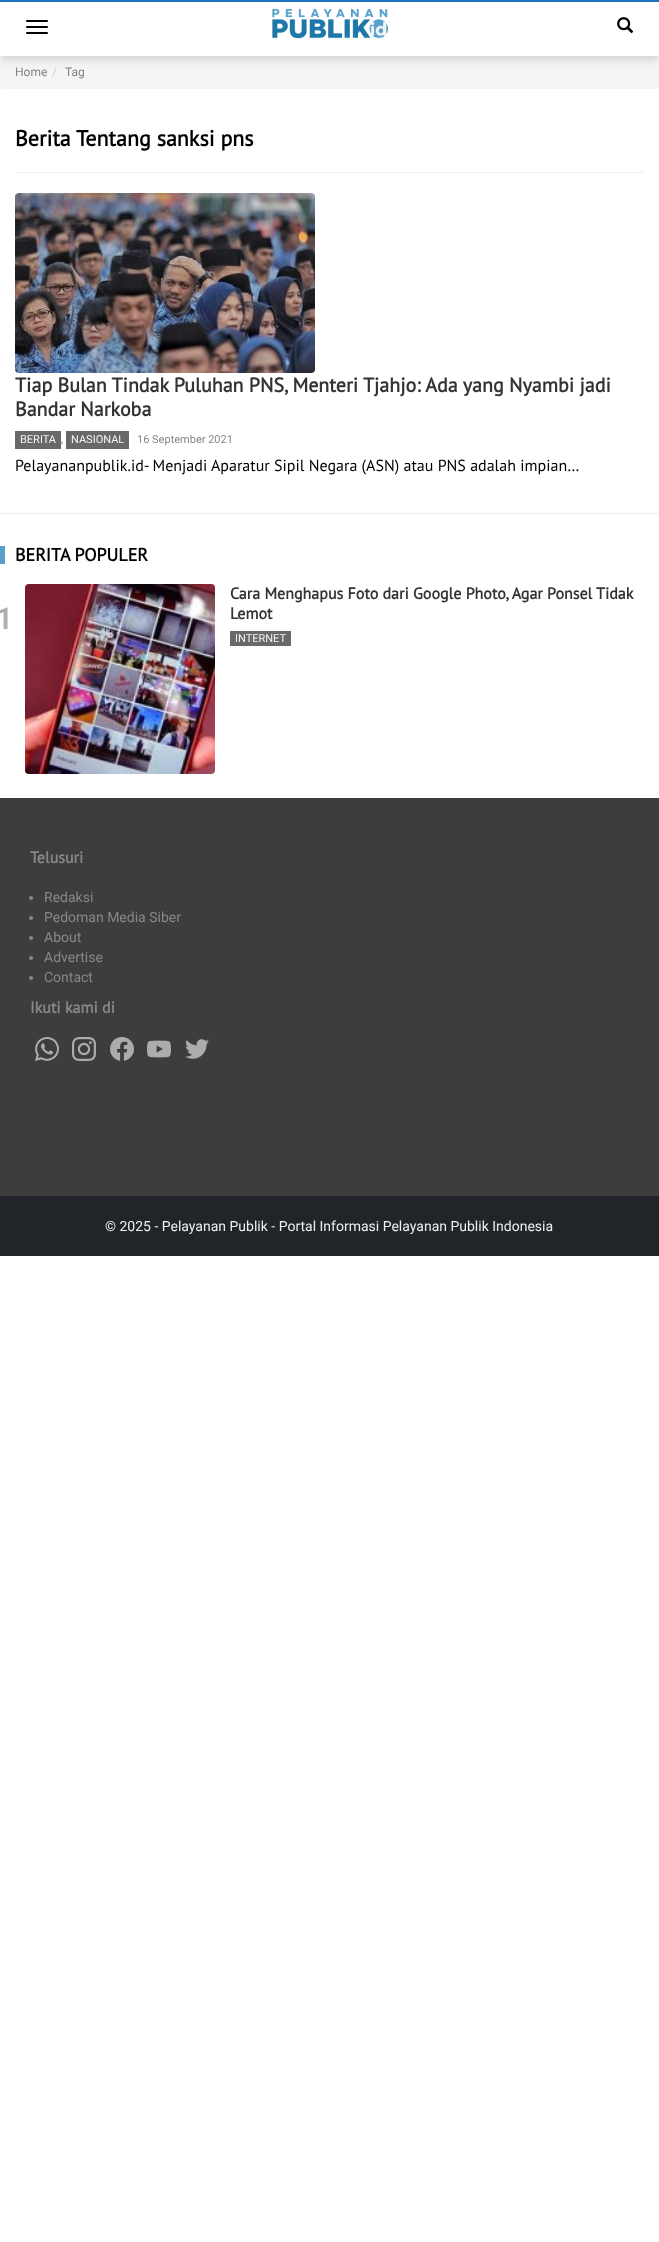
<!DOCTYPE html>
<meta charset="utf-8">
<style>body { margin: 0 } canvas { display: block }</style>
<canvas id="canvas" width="659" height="2242"></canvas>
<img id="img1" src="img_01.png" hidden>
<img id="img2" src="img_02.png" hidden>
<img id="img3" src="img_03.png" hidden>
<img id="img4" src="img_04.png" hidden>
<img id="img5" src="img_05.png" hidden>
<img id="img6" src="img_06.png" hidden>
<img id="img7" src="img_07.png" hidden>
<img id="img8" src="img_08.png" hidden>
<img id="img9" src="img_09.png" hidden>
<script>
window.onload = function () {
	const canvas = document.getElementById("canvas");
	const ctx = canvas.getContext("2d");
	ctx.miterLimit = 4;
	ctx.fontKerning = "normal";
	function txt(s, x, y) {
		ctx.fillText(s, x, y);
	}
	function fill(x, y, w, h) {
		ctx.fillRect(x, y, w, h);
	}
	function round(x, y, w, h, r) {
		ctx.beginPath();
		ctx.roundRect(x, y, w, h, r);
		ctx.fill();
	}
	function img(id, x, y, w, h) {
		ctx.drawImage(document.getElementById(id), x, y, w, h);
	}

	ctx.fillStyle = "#FFFFFF";
	fill(0, 0, 659, 2242);
	ctx.fillStyle = "#F5F5F5";
	round(0, 56, 659, 33, 4);
	ctx.save();
	ctx.beginPath();
	ctx.rect(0, 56, 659, 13);
	ctx.clip();
	ctx.fillStyle = "#CCCCCC";
	ctx.filter = "blur(5px)";
	ctx.beginPath();
	ctx.rect(0, 3, 659, 56);
	ctx.fill();
	ctx.filter = "none";
	ctx.restore();
	ctx.fillStyle = "#1E73BE";
	fill(0, 0, 659, 2);
	ctx.fillStyle = "#000000";
	round(26, 20, 22, 2, 1);
	round(26, 26, 22, 2, 1);
	round(26, 32, 22, 2, 1);
	img("img1", 272, 8, 116, 31);
	img("img2", 617, 17, 17, 17);
	ctx.fillStyle = "#EEEEEE";
	fill(15, 172, 629, 1);
	fill(0, 513, 659, 1);
	img("img3", 15, 193, 300, 180);
	ctx.fillStyle = "#696969";
	fill(15, 431, 46, 18);
	fill(66, 431, 63, 18);
	ctx.fillStyle = "#58A0C9";
	fill(0, 546, 5, 18);
	img("img4", 25, 584, 190, 190);
	ctx.fillStyle = "#696969";
	fill(230, 631, 61, 15);
	ctx.fillStyle = "#3D3D3D";
	fill(0, 798, 659, 398);
	ctx.fillStyle = "#888888";
	ctx.beginPath();
	ctx.arc(31, 898, 2, 0, Math.PI * 2);
	ctx.fill();
	ctx.beginPath();
	ctx.arc(31, 918, 2, 0, Math.PI * 2);
	ctx.fill();
	ctx.beginPath();
	ctx.arc(31, 938, 2, 0, Math.PI * 2);
	ctx.fill();
	ctx.beginPath();
	ctx.arc(31, 958, 2, 0, Math.PI * 2);
	ctx.fill();
	ctx.beginPath();
	ctx.arc(31, 978, 2, 0, Math.PI * 2);
	ctx.fill();
	img("img5", 35, 1037, 24, 24);
	img("img6", 72, 1037, 24, 24);
	img("img7", 110, 1037, 24, 24);
	img("img8", 147, 1040, 24, 18);
	img("img9", 185, 1039, 24, 20);
	ctx.fillStyle = "#212529";
	fill(0, 1196, 659, 60);
	ctx.font = "12px Roboto";
	ctx.fillStyle = "#828282";
	txt("Home", 15, 76);
	ctx.fillStyle = "#CCCCCC";
	txt("/", 52, 76);
	ctx.fillStyle = "#828282";
	txt("Tag", 65, 76);
	ctx.font = "bold 22px PT Sans";
	ctx.fillStyle = "#000000";
	txt("Berita Tentang sanksi pns", 15, 146);
	ctx.font = "bold 20px PT Sans";
	ctx.fillStyle = "#333333";
	txt("Tiap Bulan Tindak Puluhan PNS, Menteri Tjahjo: Ada yang Nyambi jadi", 15, 392);
	txt("Bandar Narkoba", 15, 416);
	ctx.font = "11px Roboto";
	ctx.fillStyle = "#F4F4F4";
	txt("BERITA", 20, 443);
	ctx.fillStyle = "#888888";
	txt(",", 61, 443);
	ctx.fillStyle = "#F4F4F4";
	txt("NASIONAL", 71, 443);
	ctx.fillStyle = "#888888";
	txt("16 September 2021", 137, 443);
	ctx.font = "16px PT Sans";
	ctx.fillStyle = "#000000";
	txt("Pelayananpublik.id- Menjadi Aparatur Sipil Negara (ASN) atau PNS adalah impian…", 15, 471);
	ctx.font = "bold 18px PT Sans";
	txt("BERITA POPULER", 15, 561);
	ctx.font = "600 30px Roboto";
	ctx.fillStyle = "#AEAEAE";
	txt("1", -4, 629);
	ctx.font = "bold 16px PT Sans";
	ctx.fillStyle = "#333333";
	txt("Cara Menghapus Foto dari Google Photo, Agar Ponsel Tidak", 230, 599);
	txt("Lemot", 230, 619);
	ctx.font = "11px Roboto";
	ctx.fillStyle = "#F4F4F4";
	txt("INTERNET", 235, 642);
	ctx.font = "bold 16px PT Sans";
	ctx.fillStyle = "#888888";
	txt("Telusuri", 30, 863);
	ctx.font = "14px Roboto";
	txt("Redaksi", 44, 902);
	txt("Pedoman Media Siber", 44, 922);
	txt("About", 44, 942);
	txt("Advertise", 44, 962);
	txt("Contact", 44, 982);
	ctx.font = "bold 16px PT Sans";
	txt("Ikuti kami di", 30, 1013);
	ctx.font = "14px Roboto";
	ctx.fillStyle = "#EEEEEE";
	txt("© 2025 - Pelayanan Publik - Portal Informasi Pelayanan Publik Indonesia", 105, 1231);
};
</script>
